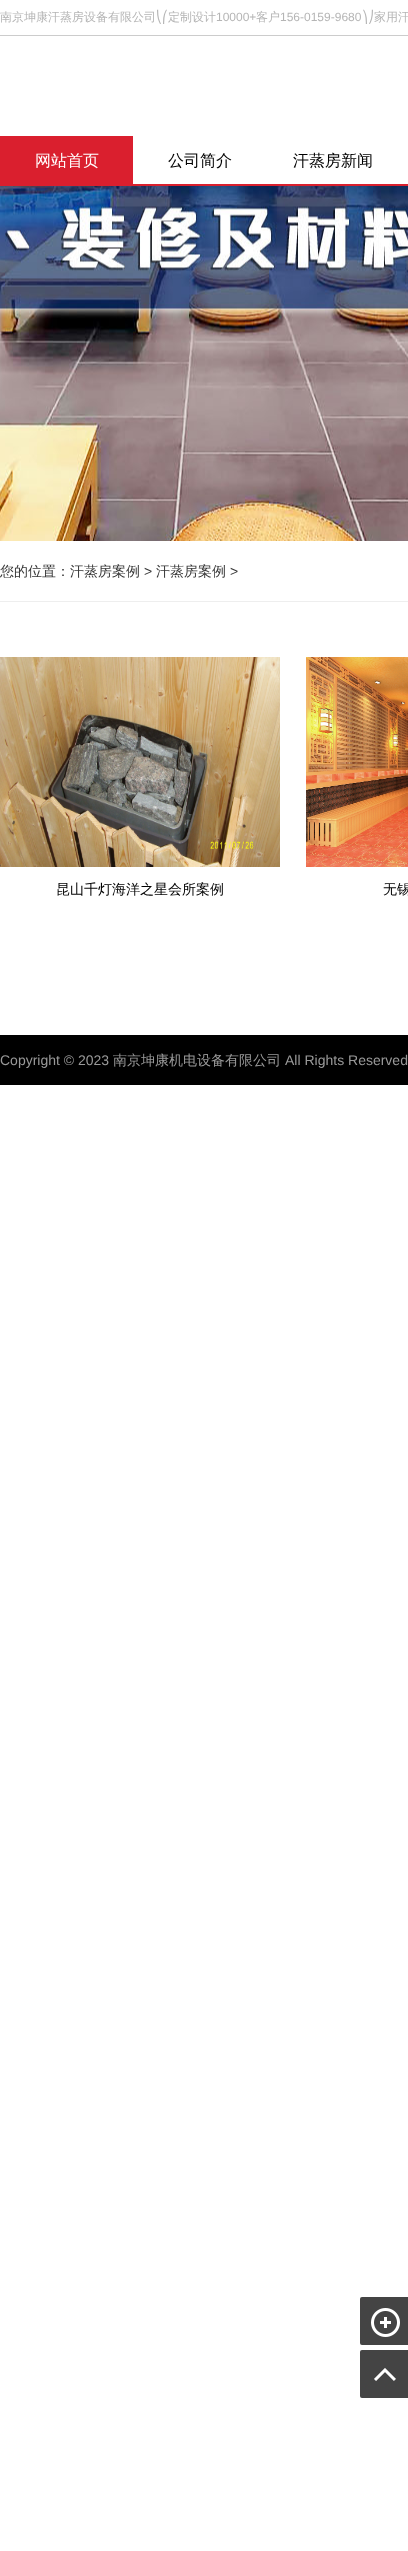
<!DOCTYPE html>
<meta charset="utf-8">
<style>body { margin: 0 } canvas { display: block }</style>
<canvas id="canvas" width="408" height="2551"></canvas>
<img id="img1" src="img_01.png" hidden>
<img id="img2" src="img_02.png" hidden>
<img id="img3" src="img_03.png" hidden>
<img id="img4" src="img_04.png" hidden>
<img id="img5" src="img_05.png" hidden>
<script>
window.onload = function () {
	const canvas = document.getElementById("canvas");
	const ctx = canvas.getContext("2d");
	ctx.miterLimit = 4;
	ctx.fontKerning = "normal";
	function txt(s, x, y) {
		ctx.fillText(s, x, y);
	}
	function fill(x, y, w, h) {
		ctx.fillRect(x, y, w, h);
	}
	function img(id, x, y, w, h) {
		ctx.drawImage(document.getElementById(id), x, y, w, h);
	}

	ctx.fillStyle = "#FFFFFF";
	fill(0, 0, 408, 2551);
	ctx.fillStyle = "#CCCCCC";
	fill(0, 35, 408, 1);
	ctx.fillStyle = "#DA202E";
	fill(133, 184, 275, 2);
	ctx.fillStyle = "#DA1F2E";
	fill(0, 136, 133, 50);
	img("img1", 0, 186, 408, 355);
	ctx.fillStyle = "#EEEEEE";
	fill(0, 601, 408, 1);
	img("img2", 0, 657, 280, 210);
	img("img3", 306, 657, 102, 210);
	ctx.fillStyle = "#000000";
	fill(0, 1035, 408, 50);
	ctx.fillStyle = "#444444";
	ctx.beginPath();
	ctx.roundRect(360, 2297, 48, 48, [2, 0, 0, 2]);
	ctx.fill();
	img("img4", 371, 2308, 29, 29);
	ctx.beginPath();
	ctx.roundRect(360, 2350, 48, 48, [2, 0, 0, 2]);
	ctx.fill();
	img("img5", 374, 2368, 22, 13);
	ctx.font = "500 12px WenQuanYi Zen Hei";
	ctx.fillStyle = "#B5B5B5";
	txt("南京坤康汗蒸房设备有限公司", 0, 21);
	ctx.font = "12px DejaVu Sans";
	txt("⎝⎛", 156, 21);
	ctx.font = "500 12px WenQuanYi Zen Hei";
	txt("定制设计", 168, 21);
	ctx.font = "12px Liberation Sans";
	txt("10000+", 216, 21);
	ctx.font = "500 12px WenQuanYi Zen Hei";
	txt("客户", 256, 21);
	ctx.font = "12px Liberation Sans";
	txt("156-0159-9680", 280, 21);
	ctx.font = "12px DejaVu Sans";
	txt("⎞⎠", 362, 21);
	ctx.font = "500 12px WenQuanYi Zen Hei";
	txt("家用汗", 374, 21);
	ctx.font = "500 16px WenQuanYi Zen Hei";
	ctx.fillStyle = "#FFFFFF";
	txt("网站首页", 35, 166);
	ctx.fillStyle = "#000000";
	txt("公司简介", 168, 166);
	txt("汗蒸房新闻", 293, 166);
	ctx.font = "500 14px WenQuanYi Zen Hei";
	ctx.fillStyle = "#363636";
	txt("您的位置：汗蒸房案例", 0, 576);
	ctx.font = "14px Liberation Sans";
	txt(">", 144, 576);
	ctx.font = "500 14px WenQuanYi Zen Hei";
	txt("汗蒸房案例", 156, 576);
	ctx.font = "14px Liberation Sans";
	txt(">", 230, 576);
	ctx.font = "500 14px WenQuanYi Zen Hei";
	ctx.fillStyle = "#000000";
	txt("昆山千灯海洋之星会所案例", 56, 894);
	txt("无锡", 383, 894);
	ctx.font = "14px Liberation Sans";
	ctx.fillStyle = "#999999";
	txt("Copyright © 2023", 0, 1065);
	ctx.font = "500 14px WenQuanYi Zen Hei";
	txt("南京坤康机电设备有限公司", 113, 1065);
	ctx.font = "14px Liberation Sans";
	txt("All Rights Reserved", 285, 1065);
};
</script>
